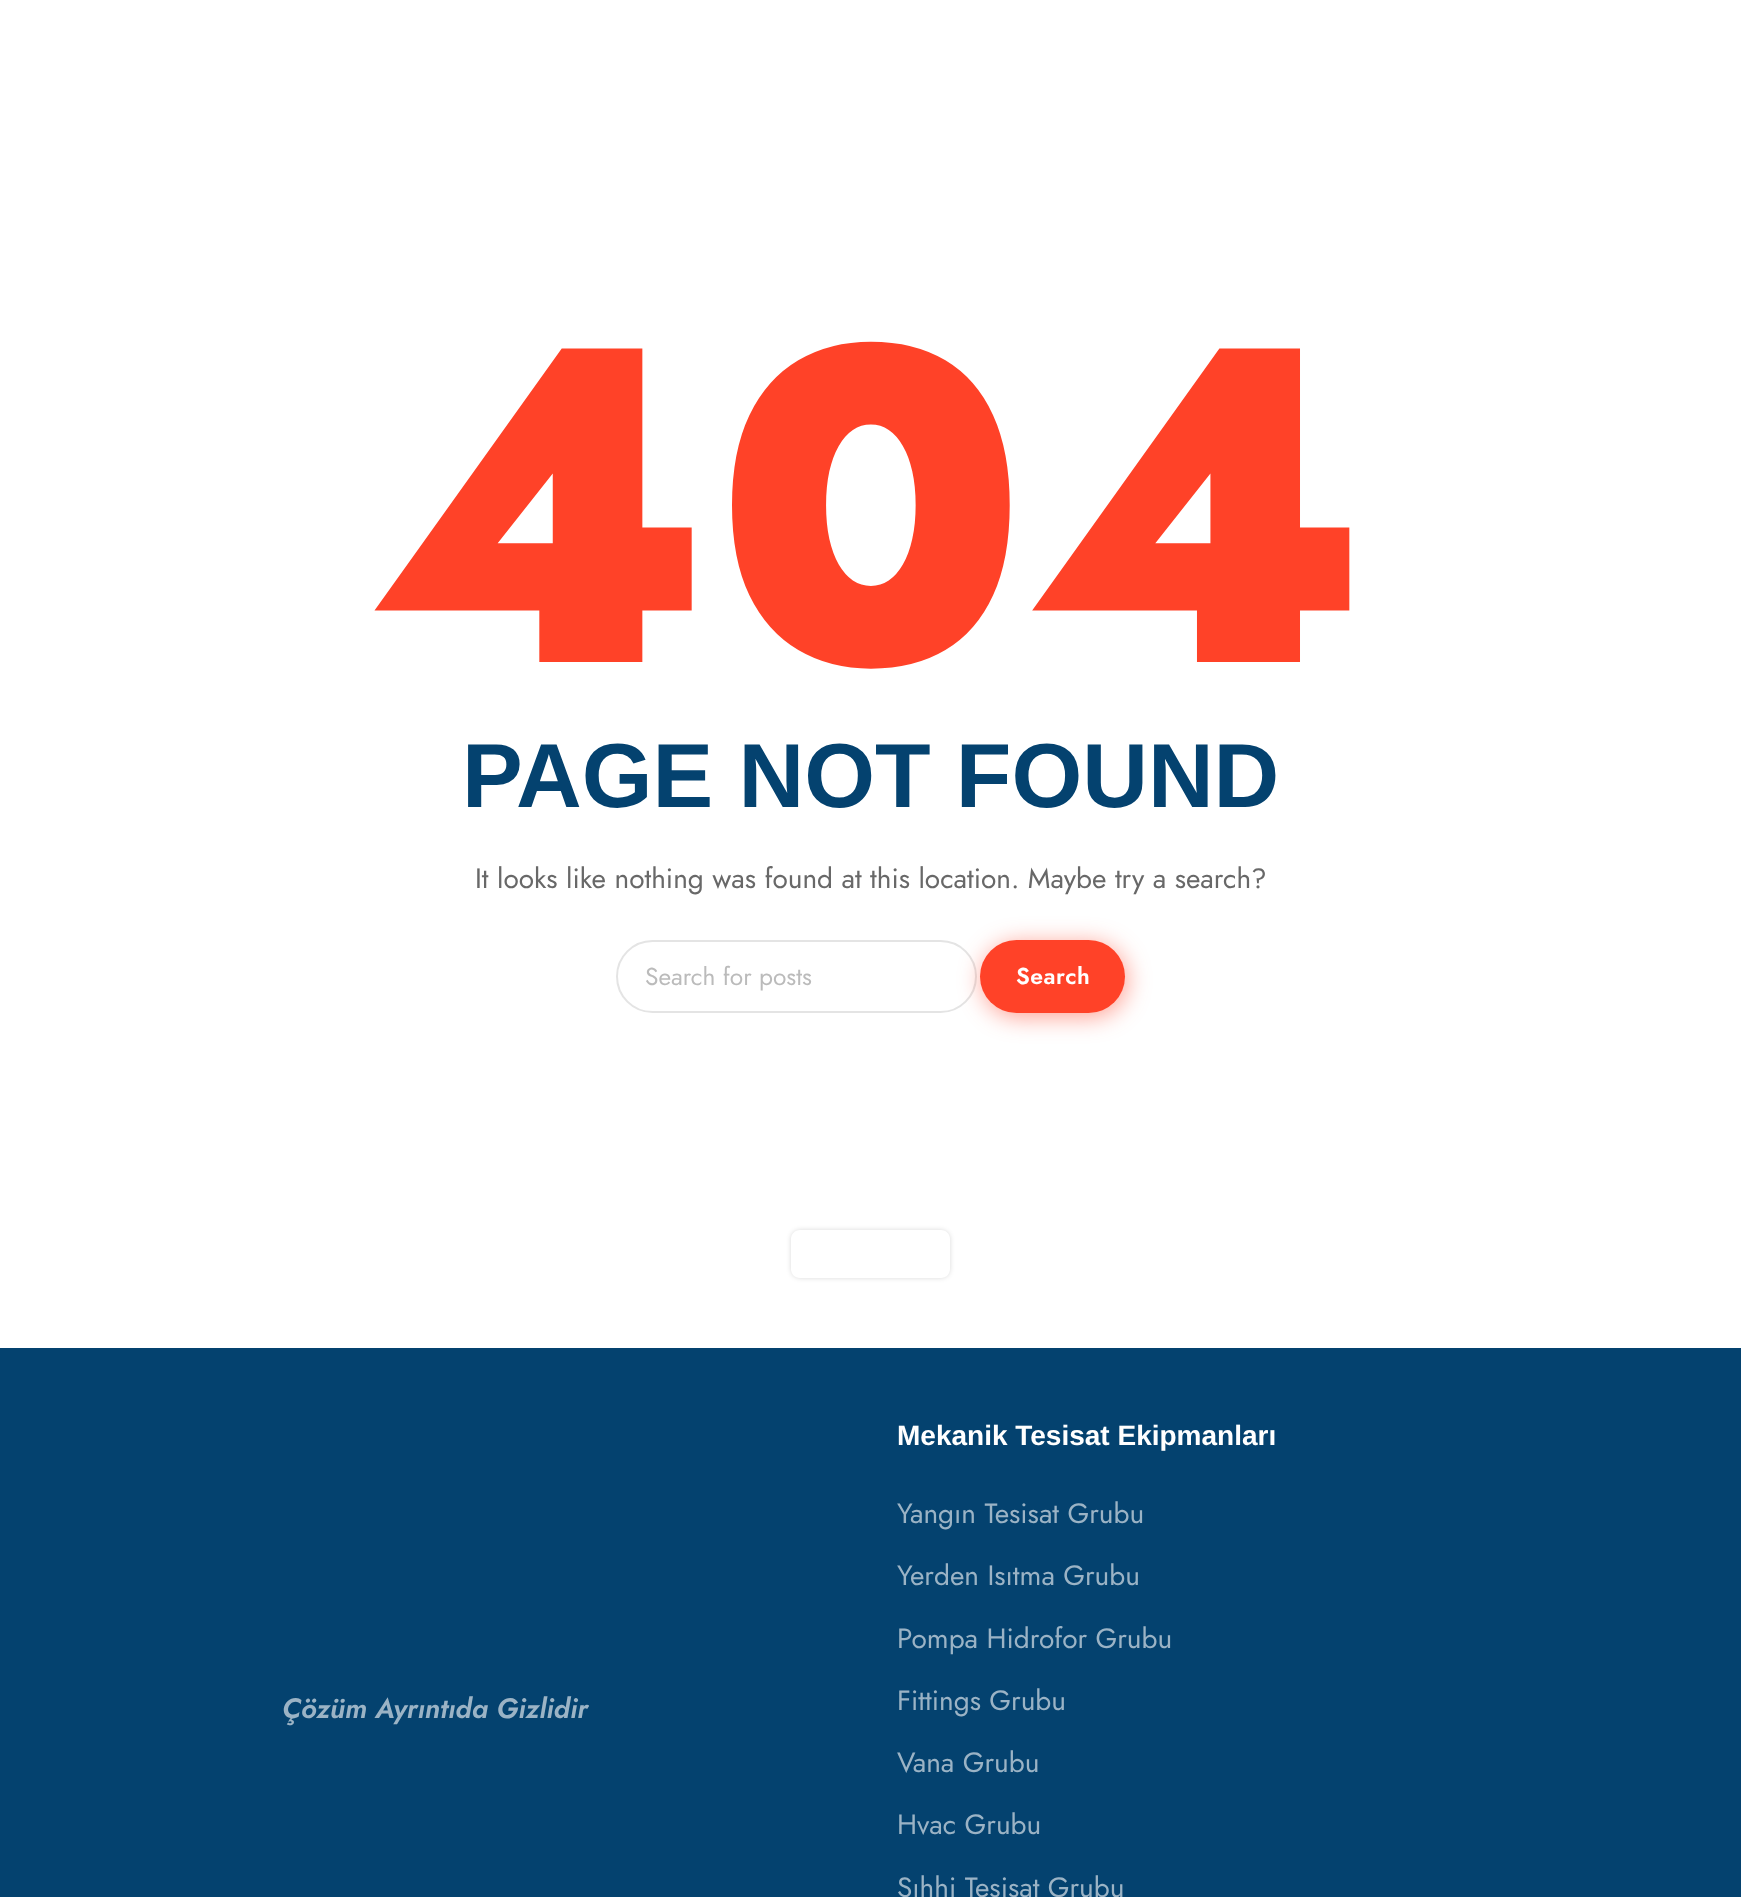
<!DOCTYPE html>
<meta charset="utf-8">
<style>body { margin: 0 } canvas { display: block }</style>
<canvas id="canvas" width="1741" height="1897"></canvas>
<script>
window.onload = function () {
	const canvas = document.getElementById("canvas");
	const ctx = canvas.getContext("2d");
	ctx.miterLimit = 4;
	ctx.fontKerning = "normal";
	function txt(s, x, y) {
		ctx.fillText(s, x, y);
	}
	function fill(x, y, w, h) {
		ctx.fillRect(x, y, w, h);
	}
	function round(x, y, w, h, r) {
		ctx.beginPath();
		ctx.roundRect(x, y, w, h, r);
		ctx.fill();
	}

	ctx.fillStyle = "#FFFFFF";
	fill(0, 0, 1741, 1897);
	ctx.beginPath();
	ctx.roundRect(617, 941, 359, 71, 35.5);
	ctx.strokeStyle = "#E4E4E4";
	ctx.lineWidth = 2;
	ctx.stroke();
	ctx.fillStyle = "rgba(255, 66, 40, 0.5)";
	ctx.filter = "blur(11.5px)";
	ctx.beginPath();
	ctx.roundRect(982, 943, 145, 74, 37);
	ctx.fill();
	ctx.filter = "none";
	ctx.fillStyle = "#FF4228";
	round(980, 940, 145, 73, 36.5);
	ctx.save();
	ctx.beginPath();
	ctx.moveTo(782, 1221);
	ctx.lineTo(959, 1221);
	ctx.lineTo(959, 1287);
	ctx.lineTo(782, 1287);
	ctx.closePath();
	ctx.moveTo(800, 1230);
	ctx.lineTo(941, 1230);
	ctx.bezierCurveTo(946, 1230, 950, 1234, 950, 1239);
	ctx.lineTo(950, 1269);
	ctx.bezierCurveTo(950, 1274, 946, 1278, 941, 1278);
	ctx.lineTo(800, 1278);
	ctx.bezierCurveTo(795, 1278, 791, 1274, 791, 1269);
	ctx.lineTo(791, 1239);
	ctx.bezierCurveTo(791, 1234, 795, 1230, 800, 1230);
	ctx.closePath();
	ctx.clip("evenodd");
	ctx.fillStyle = "rgba(0, 0, 0, 0.15)";
	ctx.filter = "blur(2.5px)";
	ctx.beginPath();
	ctx.roundRect(791, 1230, 159, 48, 9);
	ctx.fill();
	ctx.filter = "none";
	ctx.restore();
	ctx.fillStyle = "#04426F";
	fill(0, 1348, 1741, 549);
	ctx.font = "900 448px Jost";
	ctx.fillStyle = "#FF4228";
	txt("404", 370, 662);
	ctx.font = "bold 91px Liberation Sans";
	ctx.fillStyle = "#04426F";
	txt("PAGE NOT FOUND", 462, 807);
	ctx.font = "28px Jost";
	ctx.fillStyle = "#686868";
	txt("It looks like nothing was found at this location. Maybe try a search?", 475, 888);
	ctx.font = "24.5px Jost";
	ctx.fillStyle = "#BBBBBB";
	txt("Search for posts", 645, 985);
	ctx.letterSpacing = "0.5px";
	ctx.font = "600 23px Jost";
	ctx.fillStyle = "#FFFFFF";
	txt("Search", 1016, 984);
	ctx.letterSpacing = "0px";
	ctx.font = "italic 600 28px Jost";
	ctx.fillStyle = "#9BB3C5";
	txt("Çözüm Ayrıntıda Gizlidir", 282, 1718);
	ctx.font = "bold 28px Liberation Sans";
	ctx.fillStyle = "#FFFFFF";
	txt("Mekanik Tesisat Ekipmanları", 897, 1445);
	ctx.font = "28px Jost";
	ctx.fillStyle = "#9BB3C5";
	txt("Yangın Tesisat Grubu", 897, 1523);
	txt("Yerden Isıtma Grubu", 897, 1585);
	txt("Pompa Hidrofor Grubu", 897, 1648);
	txt("Fittings Grubu", 897, 1710);
	txt("Vana Grubu", 897, 1772);
	txt("Hvac Grubu", 897, 1834);
	txt("Sıhhi Tesisat Grubu", 897, 1897);
};
</script>
